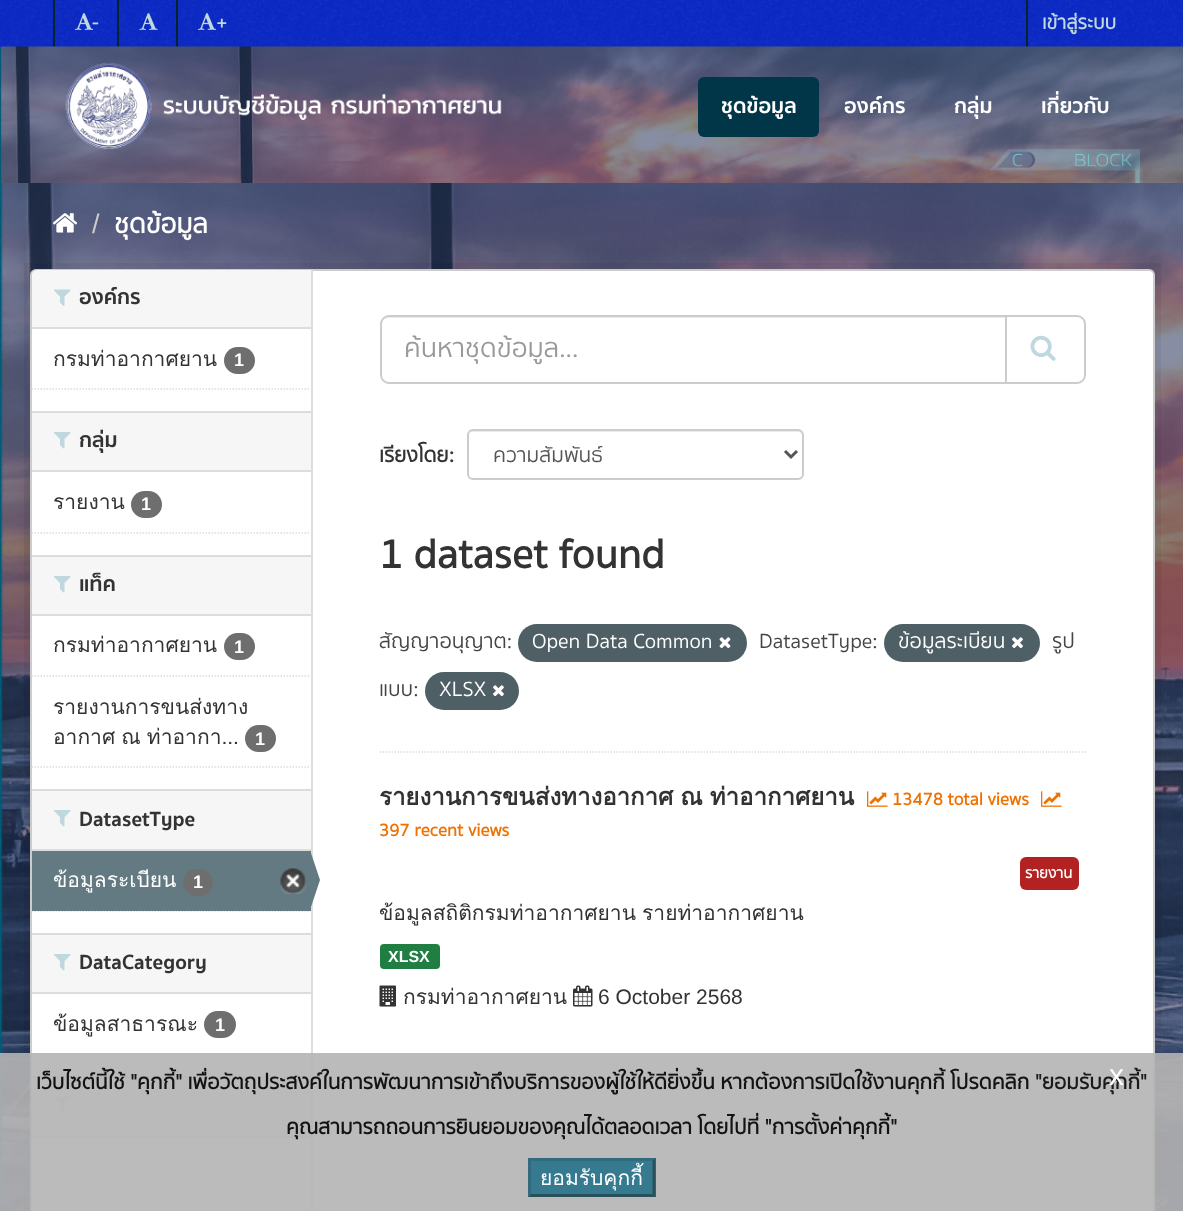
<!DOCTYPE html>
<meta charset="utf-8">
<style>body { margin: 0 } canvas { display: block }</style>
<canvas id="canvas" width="1183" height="1211"></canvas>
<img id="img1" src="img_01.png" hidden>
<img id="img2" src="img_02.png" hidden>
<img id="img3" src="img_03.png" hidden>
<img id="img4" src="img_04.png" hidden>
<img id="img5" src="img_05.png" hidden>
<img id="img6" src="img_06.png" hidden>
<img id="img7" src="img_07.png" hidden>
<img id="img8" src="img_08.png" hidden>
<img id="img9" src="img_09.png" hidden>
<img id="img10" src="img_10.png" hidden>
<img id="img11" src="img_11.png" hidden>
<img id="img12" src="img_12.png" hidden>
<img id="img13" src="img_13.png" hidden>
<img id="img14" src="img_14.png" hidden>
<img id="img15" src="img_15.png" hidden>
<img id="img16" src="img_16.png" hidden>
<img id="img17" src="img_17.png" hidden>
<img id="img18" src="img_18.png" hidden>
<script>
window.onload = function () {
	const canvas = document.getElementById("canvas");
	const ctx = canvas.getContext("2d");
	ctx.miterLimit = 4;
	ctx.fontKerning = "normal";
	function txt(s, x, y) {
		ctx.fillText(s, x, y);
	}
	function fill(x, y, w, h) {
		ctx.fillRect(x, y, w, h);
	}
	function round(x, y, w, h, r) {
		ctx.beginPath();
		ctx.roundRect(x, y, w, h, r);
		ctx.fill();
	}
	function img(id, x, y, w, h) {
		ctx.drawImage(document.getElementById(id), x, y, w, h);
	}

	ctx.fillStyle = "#005D7A";
	fill(0, 0, 1183, 1211);
	img("img1", 0, 47, 4, 1164);
	ctx.fillStyle = "#0C2AC7";
	fill(0, 0, 1183, 47);
	img("img2", 0, 0, 1183, 46);
	ctx.fillStyle = "#00232E";
	fill(53, 0, 2, 47);
	img("img3", 75, 13, 19, 17);
	fill(117, 0, 2, 47);
	img("img4", 139, 13, 19, 17);
	fill(176, 0, 2, 47);
	img("img5", 198, 13, 19, 17);
	fill(1026, 0, 2, 47);
	img("img6", 0, 46, 1183, 137);
	img("img7", 65, 63, 437, 87);
	ctx.fillStyle = "#003647";
	round(698, 77, 121, 60, 6);
	img("img8", 1, 183, 1182, 1028);
	img("img9", 53, 213, 25, 20);
	ctx.strokeStyle = "rgba(0, 0, 0, 0.05)";
	ctx.lineWidth = 6;
	ctx.strokeRect(27, 266, 1131, 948);
	ctx.fillStyle = "#FFFFFF";
	ctx.beginPath();
	ctx.roundRect(31, 270, 1123, 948, 5);
	ctx.fill();
	ctx.strokeStyle = "#CCCCCC";
	ctx.lineWidth = 2;
	ctx.stroke();
	ctx.fillStyle = "#F6F6F6";
	ctx.beginPath();
	ctx.roundRect(32, 270, 279, 59, [5, 0, 0, 0]);
	ctx.fill();
	ctx.fillStyle = "#DDDDDD";
	fill(32, 327, 279, 2);
	img("img10", 54, 289, 17, 17);
	ctx.fillStyle = "#6E6E6E";
	round(224, 347, 31, 27, 13.5);
	ctx.beginPath();
	ctx.moveTo(31.5, 389);
	ctx.lineTo(310.5, 389);
	ctx.strokeStyle = "#DDDDDD";
	ctx.lineWidth = 1.5;
	ctx.setLineDash([1.5, 1.5]);
	ctx.stroke();
	ctx.fillStyle = "#F6F6F6";
	fill(32, 413, 279, 57);
	ctx.fillStyle = "#DDDDDD";
	fill(32, 411, 279, 2);
	fill(32, 470, 279, 2);
	img("img11", 54, 432, 17, 17);
	ctx.fillStyle = "#6E6E6E";
	round(131, 491, 31, 27, 13.5);
	ctx.beginPath();
	ctx.moveTo(31.5, 533);
	ctx.lineTo(310.5, 533);
	ctx.stroke();
	ctx.fillStyle = "#F6F6F6";
	fill(32, 557, 279, 57);
	ctx.fillStyle = "#DDDDDD";
	fill(32, 555, 279, 2);
	fill(32, 614, 279, 2);
	img("img11", 54, 576, 17, 17);
	ctx.beginPath();
	ctx.moveTo(31.5, 676);
	ctx.lineTo(310.5, 676);
	ctx.stroke();
	ctx.fillStyle = "#6E6E6E";
	round(224, 633, 31, 27, 13.5);
	round(245, 725, 31, 27, 13.5);
	ctx.beginPath();
	ctx.moveTo(31.5, 767);
	ctx.lineTo(310.5, 767);
	ctx.stroke();
	ctx.fillStyle = "#F6F6F6";
	fill(32, 791, 279, 58);
	ctx.fillStyle = "#DDDDDD";
	fill(32, 789, 279, 2);
	fill(32, 849, 279, 2);
	img("img11", 54, 810, 17, 17);
	ctx.beginPath();
	ctx.moveTo(31.5, 911);
	ctx.lineTo(310.5, 911);
	ctx.stroke();
	ctx.fillStyle = "#647A82";
	fill(32, 851, 279, 60);
	ctx.fillStyle = "#6E6E6E";
	round(183, 869, 30, 27, 13.5);
	img("img12", 280, 868, 26, 26);
	ctx.fillStyle = "#DDDDDD";
	fill(311, 270, 2, 941);
	ctx.fillStyle = "#647A82";
	ctx.beginPath();
	ctx.moveTo(310, 910);
	ctx.lineTo(310, 850);
	ctx.lineTo(320, 880);
	ctx.closePath();
	ctx.fill();
	ctx.fillStyle = "#F6F6F6";
	fill(32, 935, 279, 57);
	ctx.fillStyle = "#DDDDDD";
	fill(32, 933, 279, 2);
	fill(32, 992, 279, 2);
	img("img11", 54, 954, 17, 17);
	ctx.fillStyle = "#6E6E6E";
	round(204, 1011, 32, 27, 13.5);
	ctx.beginPath();
	ctx.moveTo(31.5, 1054);
	ctx.lineTo(310.5, 1054);
	ctx.stroke();
	ctx.fillStyle = "#F6F6F6";
	fill(32, 1078, 279, 58);
	ctx.fillStyle = "#DDDDDD";
	fill(32, 1076, 279, 2);
	fill(32, 1136, 279, 2);
	img("img10", 54, 1096, 17, 17);
	ctx.beginPath();
	ctx.moveTo(379.5, 752);
	ctx.lineTo(1086, 752);
	ctx.stroke();
	ctx.fillStyle = "#ECECEC";
	ctx.beginPath();
	ctx.moveTo(388, 318);
	ctx.lineTo(1005, 318);
	ctx.lineTo(1005, 317);
	ctx.lineTo(389, 317);
	ctx.bezierCurveTo(384, 317, 381, 321, 381, 326);
	ctx.bezierCurveTo(381, 321, 384, 318, 388, 318);
	ctx.closePath();
	ctx.fill();
	ctx.beginPath();
	ctx.roundRect(381, 316, 625, 67, [8, 0, 0, 8]);
	ctx.strokeStyle = "#CCCCCC";
	ctx.lineWidth = 2;
	ctx.setLineDash([]);
	ctx.stroke();
	ctx.fillStyle = "#FFFFFF";
	ctx.beginPath();
	ctx.roundRect(1006, 316, 79, 67, [0, 8, 8, 0]);
	ctx.fill();
	ctx.stroke();
	img("img13", 1030, 335, 26, 26);
	ctx.fillStyle = "#ECECEC";
	ctx.beginPath();
	ctx.moveTo(472, 432);
	ctx.lineTo(798, 432);
	ctx.bezierCurveTo(800, 432, 802, 434, 802, 436);
	ctx.lineTo(802, 477);
	ctx.bezierCurveTo(803, 476, 803, 475, 803, 474);
	ctx.lineTo(803, 436);
	ctx.bezierCurveTo(803, 433, 801, 431, 798, 431);
	ctx.lineTo(473, 431);
	ctx.bezierCurveTo(470, 431, 468, 433, 468, 436);
	ctx.bezierCurveTo(468, 434, 470, 432, 472, 432);
	ctx.closePath();
	ctx.fill();
	ctx.beginPath();
	ctx.roundRect(468, 430, 335, 49, 5);
	ctx.stroke();
	ctx.beginPath();
	ctx.moveTo(785, 451);
	ctx.lineTo(791, 457);
	ctx.lineTo(797, 451);
	ctx.strokeStyle = "#555555";
	ctx.lineWidth = 3;
	ctx.stroke();
	ctx.fillStyle = "#4E5F65";
	round(518, 624, 229, 38, 19);
	img("img14", 719, 637, 12, 12);
	round(884, 624, 156, 38, 19);
	img("img15", 1012, 637, 11, 12);
	round(425, 672, 94, 38, 19);
	img("img15", 493, 685, 11, 12);
	img("img16", 867, 791, 21, 16);
	img("img16", 1041, 791, 21, 16);
	ctx.fillStyle = "#B22222";
	round(1020, 857, 59, 33, 6);
	ctx.fillStyle = "#207E42";
	round(380, 944, 60, 25, 4);
	img("img17", 379, 985, 17, 22);
	img("img18", 573, 985, 20, 22);
	ctx.fillStyle = "rgba(181, 180, 180, 0.9)";
	fill(0, 1053, 1183, 158);
	ctx.fillStyle = "#367A8F";
	fill(528, 1158, 128, 39);
	ctx.fillStyle = "#326B7D";
	ctx.beginPath();
	ctx.moveTo(528, 1158);
	ctx.lineTo(656, 1158);
	ctx.lineTo(652, 1161);
	ctx.lineTo(531, 1161);
	ctx.closePath();
	ctx.fill();
	ctx.fillStyle = "#2A505B";
	ctx.beginPath();
	ctx.moveTo(655.5, 1158);
	ctx.lineTo(655.5, 1197);
	ctx.lineTo(652.5, 1194);
	ctx.lineTo(652.5, 1161);
	ctx.closePath();
	ctx.fill();
	ctx.beginPath();
	ctx.moveTo(656, 1197);
	ctx.lineTo(528, 1197);
	ctx.lineTo(531, 1194);
	ctx.lineTo(652, 1194);
	ctx.closePath();
	ctx.fill();
	ctx.fillStyle = "#326B7D";
	ctx.beginPath();
	ctx.moveTo(528, 1197);
	ctx.lineTo(528, 1158);
	ctx.lineTo(531, 1161);
	ctx.lineTo(531, 1194);
	ctx.closePath();
	ctx.fill();
	ctx.font = "bold 19.5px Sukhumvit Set";
	ctx.fillStyle = "#BFD7DE";
	txt("-", 92, 29);
	txt("+", 216, 29);
	txt("เข้าสู่ระบบ", 1042, 29);
	ctx.font = "bold 21px 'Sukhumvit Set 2'";
	ctx.fillStyle = "#FFFFFF";
	txt("ชุดข้อมูล", 721, 113);
	txt("องค์กร", 844, 113);
	txt("กลุ่ม", 954, 113);
	txt("เกี่ยวกับ", 1041, 113);
	ctx.font = "27px Liberation Sans";
	ctx.fillStyle = "#CCCCCC";
	txt("/", 92, 233);
	ctx.font = "bold 27px Sukhumvit Set";
	ctx.fillStyle = "#FFFFFF";
	txt("ชุดข้อมูล", 114, 233);
	ctx.font = "bold 21px 'Sukhumvit Set 2'";
	ctx.fillStyle = "#333333";
	txt("องค์กร", 79, 304);
	ctx.font = "21px Loma";
	txt("กรมท่าอากาศยาน", 53, 366);
	ctx.font = "bold 18px Liberation Sans";
	ctx.fillStyle = "#FFFFFF";
	txt("1", 234, 366);
	ctx.font = "bold 21px 'Sukhumvit Set 2'";
	ctx.fillStyle = "#333333";
	txt("กลุ่ม", 79, 447);
	ctx.font = "21px Loma";
	txt("รายงาน", 53, 509);
	ctx.font = "bold 18px Liberation Sans";
	ctx.fillStyle = "#FFFFFF";
	txt("1", 141, 510);
	ctx.font = "bold 21px 'Sukhumvit Set 2'";
	ctx.fillStyle = "#333333";
	txt("แท็ค", 79, 591);
	ctx.font = "21px Loma";
	txt("กรมท่าอากาศยาน", 53, 652);
	ctx.font = "bold 18px Liberation Sans";
	ctx.fillStyle = "#FFFFFF";
	txt("1", 234, 653);
	ctx.font = "21px Loma";
	ctx.fillStyle = "#333333";
	txt("รายงานการขนส่งทาง", 53, 714);
	ctx.wordSpacing = "-1px";
	txt("อากาศ ณ ท่าอากา...", 53, 744);
	ctx.wordSpacing = "0px";
	ctx.font = "bold 18px Liberation Sans";
	ctx.fillStyle = "#FFFFFF";
	txt("1", 255, 745);
	ctx.font = "bold 21px 'Sukhumvit Set 2'";
	ctx.fillStyle = "#333333";
	txt("DatasetType", 79, 826);
	ctx.font = "21px Loma";
	ctx.fillStyle = "#FFFFFF";
	txt("ข้อมูลระเบียน", 53, 887);
	ctx.font = "bold 18px Liberation Sans";
	txt("1", 193, 888);
	ctx.font = "bold 21px 'Sukhumvit Set 2'";
	ctx.fillStyle = "#333333";
	txt("DataCategory", 79, 969);
	ctx.font = "21px Loma";
	txt("ข้อมูลสาธารณะ", 53, 1031);
	ctx.font = "bold 18px Liberation Sans";
	ctx.fillStyle = "#FFFFFF";
	txt("1", 215, 1031);
	ctx.save();
	ctx.beginPath();
	ctx.rect(405, 330, 576, 39);
	ctx.clip();
	ctx.font = "27px Sukhumvit Set";
	ctx.fillStyle = "#999999";
	txt("ค้นหาชุดข้อมูล...", 404, 357);
	ctx.restore();
	ctx.font = "bold 21px Sukhumvit Set";
	ctx.fillStyle = "#333333";
	txt("เรียงโดย:", 379, 462);
	ctx.font = "21px Sukhumvit Set";
	ctx.fillStyle = "#555555";
	txt("ความสัมพันธ์", 493, 462);
	ctx.font = "bold 42px Sukhumvit Set";
	ctx.fillStyle = "#333333";
	txt("1 dataset found", 379, 568);
	ctx.font = "21px Sukhumvit Set";
	ctx.fillStyle = "#444444";
	txt("สัญญาอนุญาต:", 379, 648);
	ctx.fillStyle = "#FFFFFF";
	txt("Open Data Common", 532, 648);
	ctx.fillStyle = "#444444";
	txt("DatasetType:", 759, 648);
	ctx.fillStyle = "#FFFFFF";
	txt("ข้อมูลระเบียน", 898, 648);
	ctx.fillStyle = "#444444";
	txt("รูป", 1052, 648);
	txt("แบบ:", 379, 696);
	ctx.fillStyle = "#FFFFFF";
	txt("XLSX", 439, 696);
	ctx.wordSpacing = "-1px";
	ctx.font = "bold 24px Loma";
	ctx.fillStyle = "#333333";
	txt("รายงานการขนส่งทางอากาศ ณ ท่าอากาศยาน", 379, 805);
	ctx.wordSpacing = "0px";
	ctx.font = "bold 18px Sukhumvit Set";
	ctx.fillStyle = "#EF7100";
	txt("13478 total views", 892, 805);
	txt("397 recent views", 379, 836);
	ctx.font = "bold 15px Sukhumvit Set";
	ctx.fillStyle = "#FFFFFF";
	txt("รายงาน", 1025, 878);
	ctx.wordSpacing = "-1px";
	ctx.font = "21px Loma";
	ctx.fillStyle = "#333333";
	txt("ข้อมูลสถิติกรมท่าอากาศยาน รายท่าอากาศยาน", 379, 920);
	ctx.wordSpacing = "0px";
	ctx.font = "bold 16px Liberation Sans";
	ctx.fillStyle = "#FFFFFF";
	txt("XLSX", 388, 962);
	ctx.font = "21px Loma";
	ctx.fillStyle = "#333333";
	txt("กรมท่าอากาศยาน", 403, 1004);
	ctx.font = "21px Liberation Sans";
	txt("6 October 2568", 598, 1004);
	ctx.font = "bold 21px Sukhumvit Set";
	ctx.fillStyle = "#131313";
	txt("เว็บไซต์นี้ใช้ \"คุกกี้\" เพื่อวัตถุประสงค์ในการพัฒนาการเข้าถึงบริการของผู้ใช้ให้ดียิ่งขึ้น หากต้องการเปิดใช้งานคุกกี้ โปรดคลิก", 36, 1089);
	ctx.fillStyle = "#1A1A1A";
	txt("\"ยอมรับคุกกี้\"", 1035, 1089);
	ctx.font = "30px Liberation Sans";
	ctx.fillStyle = "#FFFFFF";
	txt("x", 1109, 1085);
	ctx.font = "bold 21px Sukhumvit Set";
	ctx.fillStyle = "#131313";
	txt("คุณสามารถถอนการยินยอมของคุณได้ตลอดเวลา โดยไปที่ \"การตั้งค่าคุกกี้\"", 286, 1134);
	ctx.font = "21px Loma";
	ctx.fillStyle = "#FFFFFF";
	txt("ยอมรับคุกกี้", 540, 1185);
};
</script>
